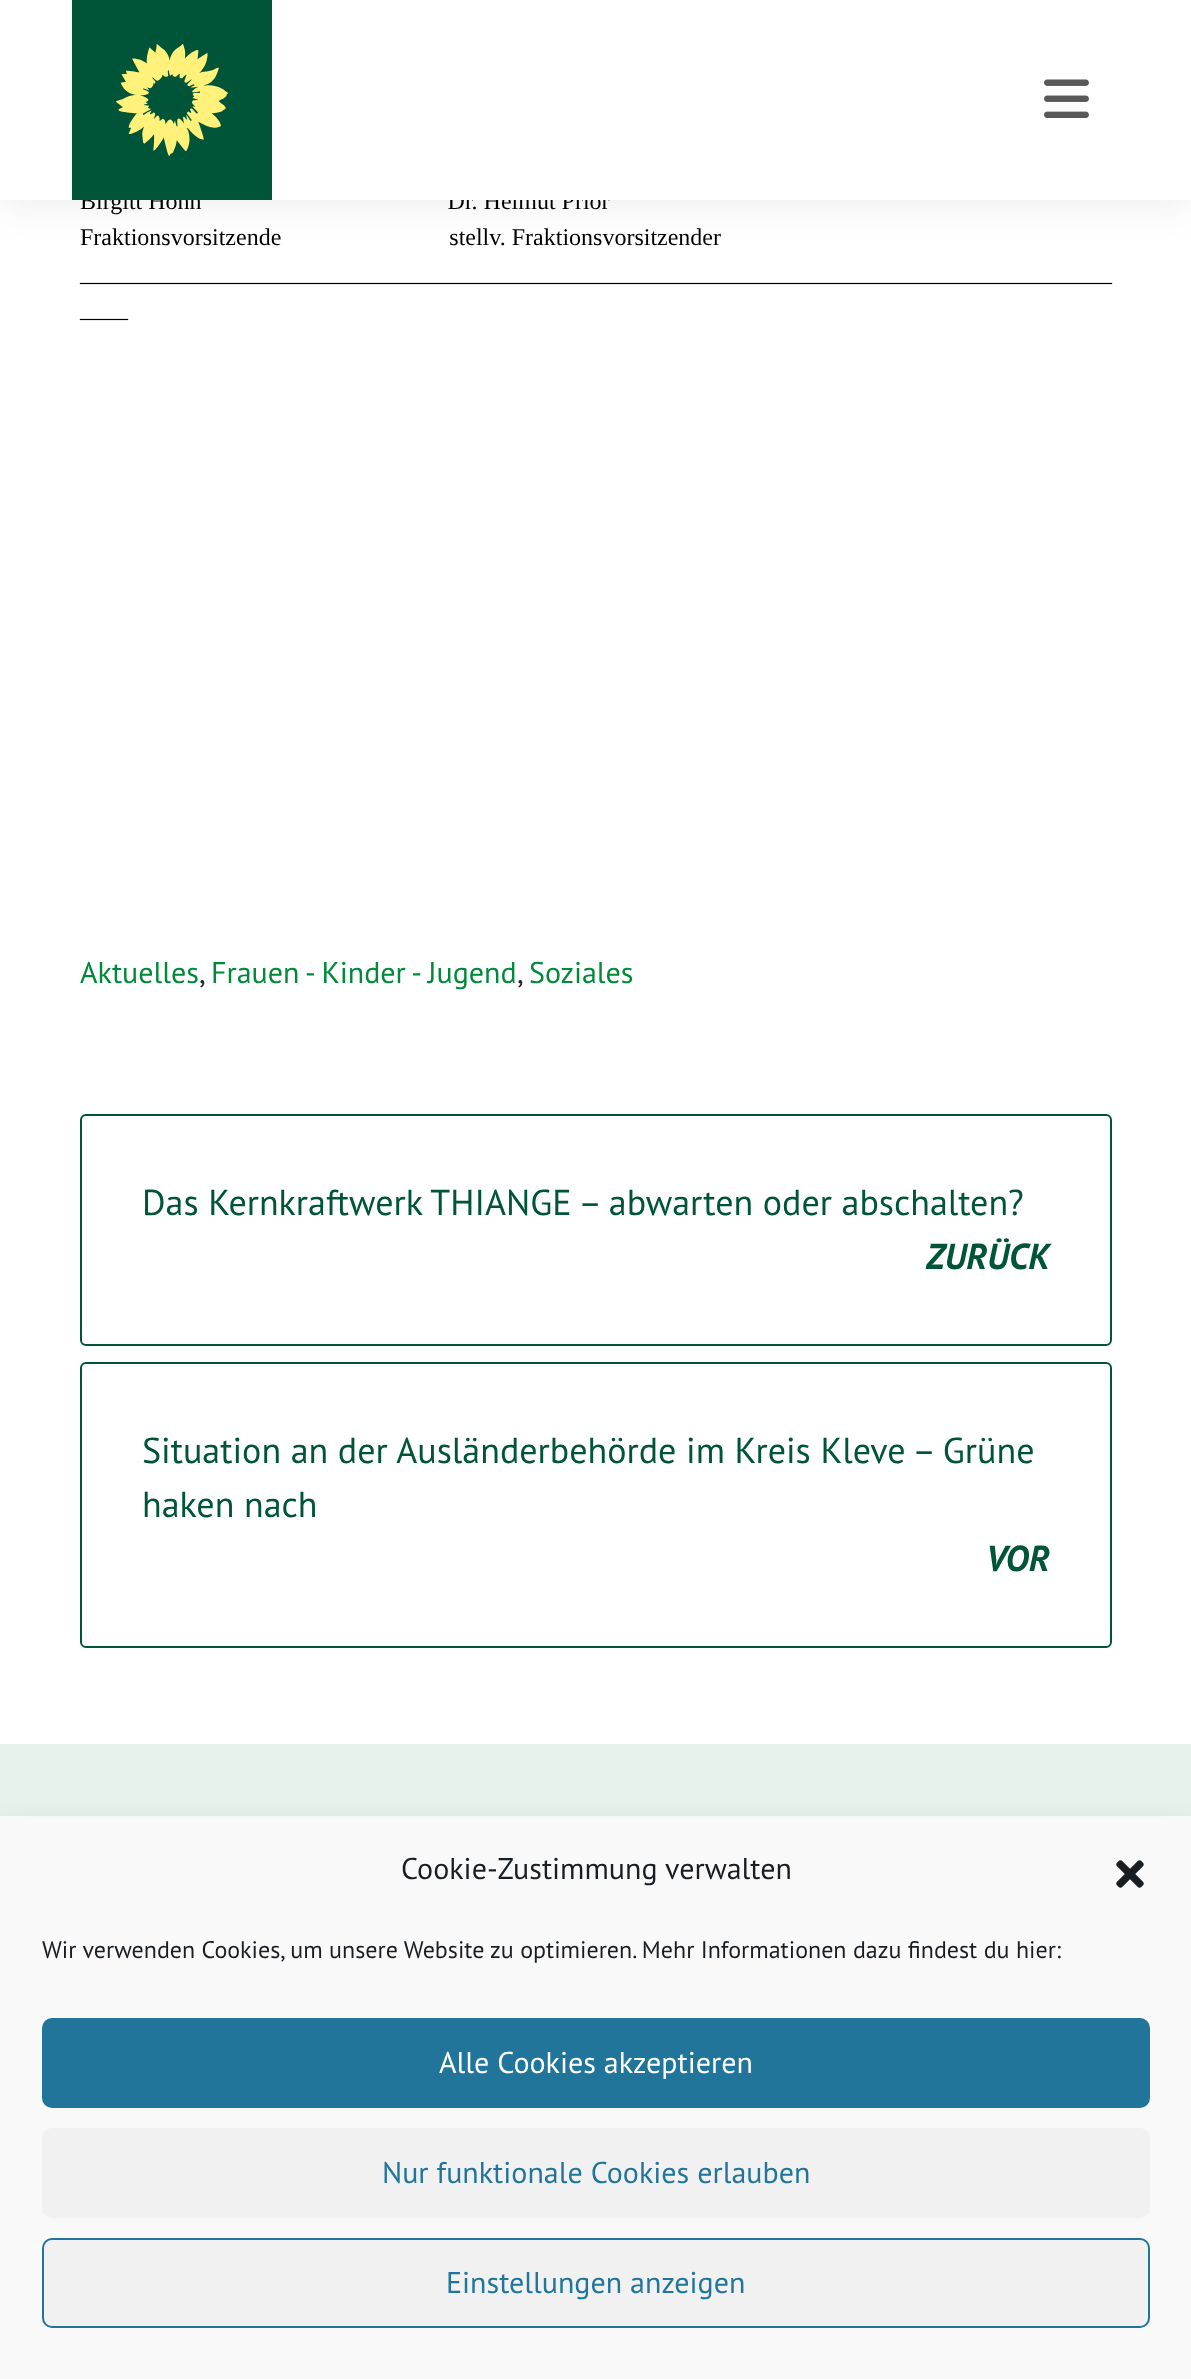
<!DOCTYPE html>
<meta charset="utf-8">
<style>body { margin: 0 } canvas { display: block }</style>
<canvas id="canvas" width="1191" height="2379"></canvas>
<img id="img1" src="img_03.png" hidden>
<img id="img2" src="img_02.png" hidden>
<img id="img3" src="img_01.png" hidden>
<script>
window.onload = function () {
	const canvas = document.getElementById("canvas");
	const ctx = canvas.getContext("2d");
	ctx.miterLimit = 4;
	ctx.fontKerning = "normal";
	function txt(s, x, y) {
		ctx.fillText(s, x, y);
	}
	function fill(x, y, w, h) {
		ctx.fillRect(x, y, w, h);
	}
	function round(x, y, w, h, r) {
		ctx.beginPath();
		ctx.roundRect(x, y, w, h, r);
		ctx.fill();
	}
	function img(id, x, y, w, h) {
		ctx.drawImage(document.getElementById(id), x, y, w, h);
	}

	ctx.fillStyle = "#FFFFFF";
	fill(0, 0, 1191, 2379);
	ctx.fillStyle = "rgba(0, 0, 0, 0.08)";
	ctx.filter = "blur(20px)";
	ctx.beginPath();
	ctx.rect(0, 2, 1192, 200);
	ctx.fill();
	ctx.filter = "none";
	ctx.beginPath();
	ctx.roundRect(81, 1115, 1030, 230, 5);
	ctx.strokeStyle = "#005437";
	ctx.lineWidth = 2;
	ctx.stroke();
	ctx.beginPath();
	ctx.roundRect(81, 1363, 1030, 284, 5);
	ctx.stroke();
	ctx.fillStyle = "#E5F3EB";
	fill(0, 1744, 1191, 72);
	ctx.fillStyle = "rgba(0, 0, 0, 0.19)";
	ctx.filter = "blur(20px)";
	ctx.beginPath();
	ctx.rect(0, 1836, 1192, 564);
	ctx.fill();
	ctx.filter = "none";
	ctx.fillStyle = "#F9F9F9";
	fill(0, 1818, 1191, 561);
	img("img1", 1116, 1860, 28, 28);
	ctx.fillStyle = "#21759B";
	ctx.beginPath();
	ctx.roundRect(43, 2019, 1106, 88, 9);
	ctx.fill();
	ctx.strokeStyle = "#21759B";
	ctx.stroke();
	ctx.fillStyle = "#F1F1F1";
	round(42, 2128, 1108, 90, 10);
	ctx.beginPath();
	ctx.roundRect(43, 2239, 1106, 88, 9);
	ctx.fill();
	ctx.stroke();
	ctx.font = "24px Liberation Serif";
	ctx.fillStyle = "#000000";
	txt("Birgitt Höhn                                         Dr. Helmut Prior", 80, 209);
	ctx.fillStyle = "#FFFFFF";
	fill(0, 0, 1191, 200);
	img("img2", 1044, 79, 45, 39);
	ctx.fillStyle = "#005437";
	fill(72, 0, 200, 200);
	img("img3", 116, 44, 112, 112);
	ctx.fillStyle = "#000000";
	txt("Fraktionsvorsitzende                            stellv. Fraktionsvorsitzender", 80, 245);
	txt("______________________________________________________________________________________", 80, 281);
	txt("____", 80, 317);
	ctx.font = "30px PT Sans";
	ctx.fillStyle = "#008939";
	txt("Aktuelles", 80, 983);
	ctx.fillStyle = "#212529";
	txt(",", 199, 983);
	ctx.fillStyle = "#008939";
	txt("Frauen - Kinder - Jugend", 211, 983);
	ctx.fillStyle = "#212529";
	txt(",", 517, 983);
	ctx.fillStyle = "#008939";
	txt("Soziales", 529, 983);
	ctx.font = "36px PT Sans";
	ctx.fillStyle = "#005437";
	txt("Das Kernkraftwerk THIANGE – abwarten oder abschalten?", 142, 1215);
	ctx.font = "italic bold 36px PT Sans";
	txt("ZURÜCK", 926, 1269);
	ctx.font = "36px PT Sans";
	txt("Situation an der Ausländerbehörde im Kreis Kleve – Grüne", 142, 1463);
	txt("haken nach", 142, 1517);
	ctx.font = "italic bold 36px PT Sans";
	txt("VOR", 986, 1571);
	ctx.font = "30px PT Sans";
	ctx.fillStyle = "#191E23";
	txt("Cookie-Zustimmung verwalten", 401, 1879);
	ctx.font = "24px PT Sans";
	txt("Wir verwenden Cookies, um unsere Website zu optimieren. Mehr Informationen dazu findest du hier:", 42, 1958);
	ctx.font = "30px PT Sans";
	ctx.fillStyle = "#FFFFFF";
	txt("Alle Cookies akzeptieren", 439, 2073);
	ctx.fillStyle = "#21759B";
	txt("Nur funktionale Cookies erlauben", 382, 2183);
	txt("Einstellungen anzeigen", 446, 2293);
};
</script>
